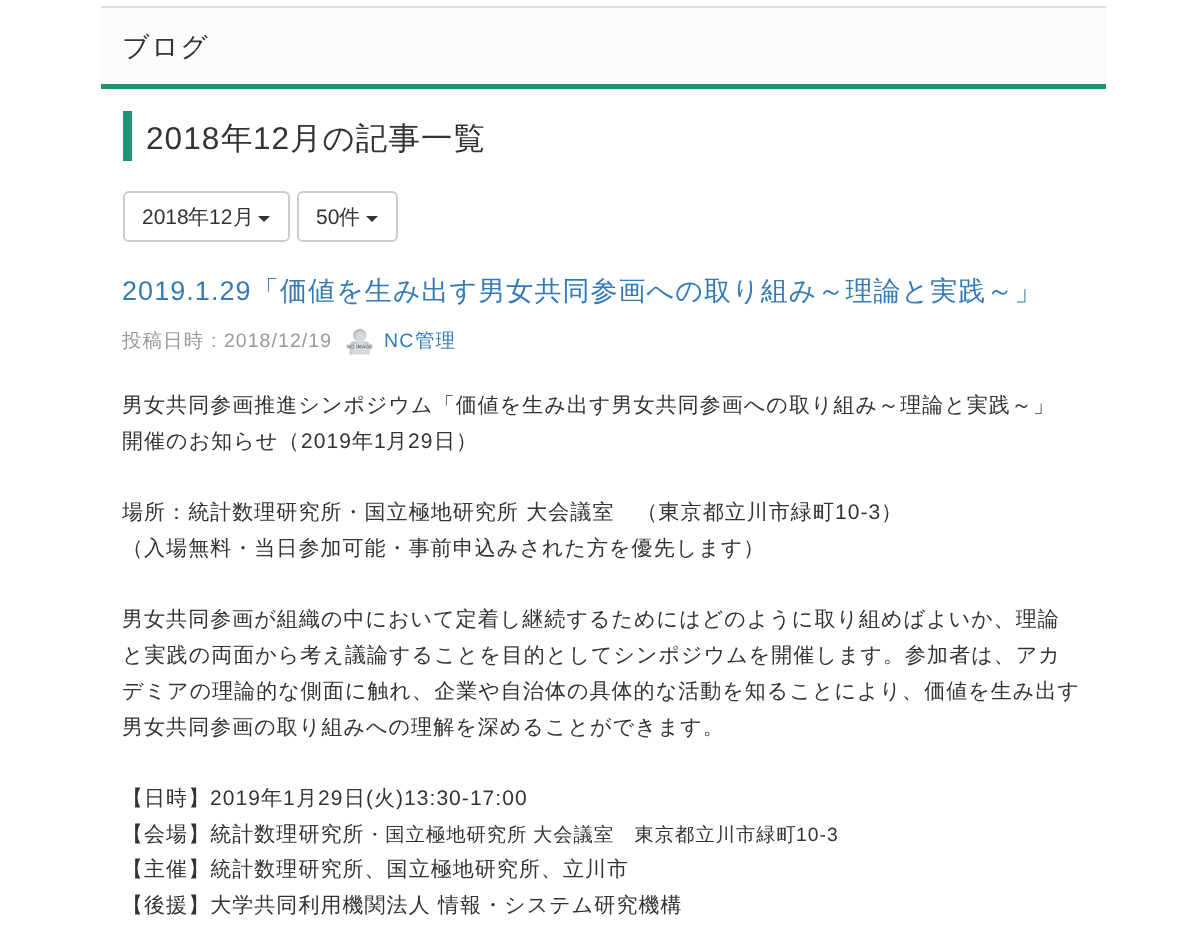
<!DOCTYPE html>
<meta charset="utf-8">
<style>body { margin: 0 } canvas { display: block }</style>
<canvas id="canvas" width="1204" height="933"></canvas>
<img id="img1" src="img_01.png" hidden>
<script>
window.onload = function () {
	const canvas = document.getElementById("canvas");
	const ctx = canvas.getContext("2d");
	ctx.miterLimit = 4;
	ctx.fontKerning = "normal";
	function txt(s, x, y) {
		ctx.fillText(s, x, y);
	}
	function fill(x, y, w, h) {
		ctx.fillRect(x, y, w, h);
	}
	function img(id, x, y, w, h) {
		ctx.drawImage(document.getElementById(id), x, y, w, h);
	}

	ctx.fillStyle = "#FFFFFF";
	fill(0, 0, 1204, 933);
	ctx.fillStyle = "#FCFCFC";
	fill(101, 8, 1005, 76);
	ctx.fillStyle = "#DDDDDD";
	fill(101, 6, 1005, 2);
	ctx.fillStyle = "#1D9377";
	fill(101, 84, 1005, 5);
	fill(123, 111, 9, 50);
	ctx.beginPath();
	ctx.roundRect(124, 192, 165, 49, 5);
	ctx.strokeStyle = "#CCCCCC";
	ctx.lineWidth = 2;
	ctx.stroke();
	ctx.fillStyle = "#333333";
	ctx.beginPath();
	ctx.moveTo(258, 216);
	ctx.lineTo(270, 216);
	ctx.lineTo(264, 222);
	ctx.closePath();
	ctx.fill();
	ctx.beginPath();
	ctx.roundRect(298, 192, 99, 49, 5);
	ctx.stroke();
	ctx.beginPath();
	ctx.moveTo(366, 216);
	ctx.lineTo(378, 216);
	ctx.lineTo(372, 222);
	ctx.closePath();
	ctx.fill();
	img("img1", 346, 328, 27, 27);
	ctx.letterSpacing = "1.5px";
	ctx.font = "500 27px WenQuanYi Zen Hei";
	txt("ブログ", 122, 56);
	ctx.letterSpacing = "1.05px";
	ctx.font = "31.5px Liberation Sans";
	txt("2018", 146, 149);
	ctx.font = "500 31.5px WenQuanYi Zen Hei";
	txt("年", 221, 149);
	ctx.font = "31.5px Liberation Sans";
	txt("12", 253, 149);
	ctx.font = "500 31.5px WenQuanYi Zen Hei";
	txt("月の記事一覧", 290, 149);
	ctx.letterSpacing = "0px";
	ctx.font = "21px Liberation Sans";
	txt("2018", 142, 224);
	ctx.font = "500 21px WenQuanYi Zen Hei";
	txt("年", 188, 224);
	ctx.font = "21px Liberation Sans";
	txt("12", 209, 224);
	ctx.font = "500 21px WenQuanYi Zen Hei";
	txt("月", 233, 224);
	ctx.font = "21px Liberation Sans";
	txt("50", 316, 224);
	ctx.font = "500 21px WenQuanYi Zen Hei";
	txt("件", 339, 224);
	ctx.letterSpacing = "1.05px";
	ctx.font = "27px Liberation Sans";
	ctx.fillStyle = "#337AB7";
	txt("2019.1.29", 122, 300);
	ctx.font = "500 27px WenQuanYi Zen Hei";
	txt("「価値を生み出す男女共同参画への取り組み～理論と実践～」", 252, 300);
	ctx.font = "500 19.5px WenQuanYi Zen Hei";
	ctx.fillStyle = "#999999";
	txt("投稿日時", 122, 347);
	ctx.font = "19.5px Liberation Sans";
	txt(": 2018/12/19", 211, 347);
	ctx.fillStyle = "#337AB7";
	txt("NC", 384, 347);
	ctx.font = "500 19.5px WenQuanYi Zen Hei";
	txt("管理", 415, 347);
	ctx.font = "500 21px WenQuanYi Zen Hei";
	ctx.fillStyle = "#333333";
	txt("男女共同参画推進シンポジウム「価値を生み出す男女共同参画への取り組み～理論と実践～」", 122, 412);
	txt("開催のお知らせ（", 122, 448);
	ctx.font = "21px Liberation Sans";
	txt("2019", 301, 448);
	ctx.font = "500 21px WenQuanYi Zen Hei";
	txt("年", 352, 448);
	ctx.font = "21px Liberation Sans";
	txt("1", 374, 448);
	ctx.font = "500 21px WenQuanYi Zen Hei";
	txt("月", 386, 448);
	ctx.font = "21px Liberation Sans";
	txt("29", 408, 448);
	ctx.font = "500 21px WenQuanYi Zen Hei";
	txt("日）", 434, 448);
	txt("場所：統計数理研究所・国立極地研究所 大会議室　（東京都立川市緑町", 122, 519);
	ctx.font = "21px Liberation Sans";
	txt("10-3", 835, 519);
	ctx.font = "500 21px WenQuanYi Zen Hei";
	txt("）", 881, 519);
	txt("（入場無料・当日参加可能・事前申込みされた方を優先します）", 122, 555);
	txt("男女共同参画が組織の中において定着し継続するためにはどのように取り組めばよいか、理論", 122, 626);
	txt("と実践の両面から考え議論することを目的としてシンポジウムを開催します。参加者は、アカ", 122, 662);
	txt("デミアの理論的な側面に触れ、企業や自治体の具体的な活動を知ることにより、価値を生み出す", 122, 698);
	txt("男女共同参画の取り組みへの理解を深めることができます。", 122, 734);
	txt("【日時】", 122, 805);
	ctx.font = "21px Liberation Sans";
	txt("2019", 210, 805);
	ctx.font = "500 21px WenQuanYi Zen Hei";
	txt("年", 261, 805);
	ctx.font = "21px Liberation Sans";
	txt("1", 283, 805);
	ctx.font = "500 21px WenQuanYi Zen Hei";
	txt("月", 296, 805);
	ctx.font = "21px Liberation Sans";
	txt("29", 318, 805);
	ctx.font = "500 21px WenQuanYi Zen Hei";
	txt("日", 344, 805);
	ctx.font = "21px Liberation Sans";
	txt("(", 366, 805);
	ctx.font = "500 21px WenQuanYi Zen Hei";
	txt("火", 374, 805);
	ctx.font = "21px Liberation Sans";
	txt(")13:30-17:00", 396, 805);
	ctx.font = "500 21px WenQuanYi Zen Hei";
	txt("【会場】統計数理研究所", 122, 841);
	ctx.font = "500 19.25px WenQuanYi Zen Hei";
	txt("・国立極地研究所", 365, 841);
	txt("大会議室　東京都立川市緑町", 533, 841);
	ctx.font = "19.25px Liberation Sans";
	txt("10-3", 796, 841);
	ctx.font = "500 21px WenQuanYi Zen Hei";
	txt("【主催】統計数理研究所、国立極地研究所、立川市", 122, 876);
	txt("【後援】大学共同利用機関法人 情報・システム研究機構", 122, 912);
};
</script>
